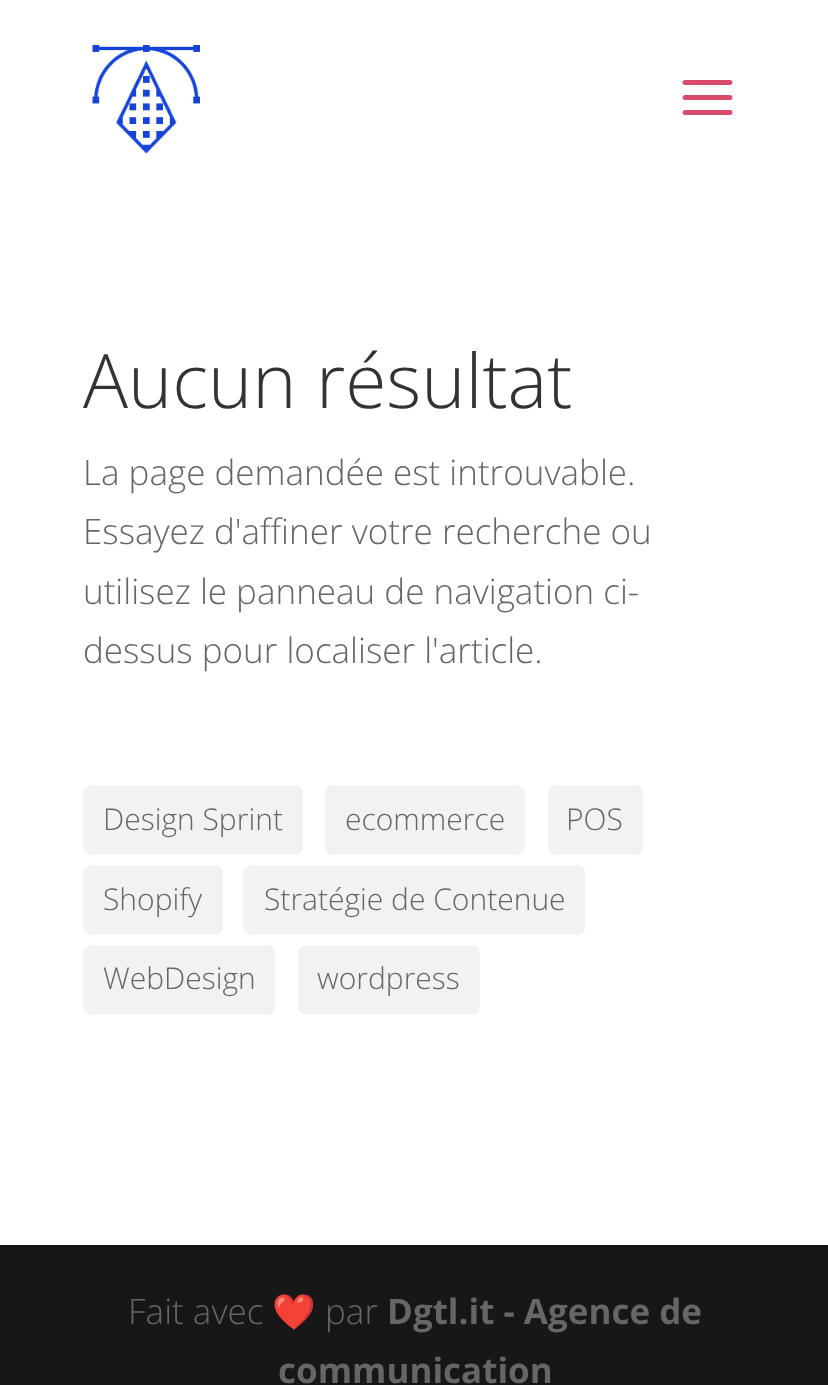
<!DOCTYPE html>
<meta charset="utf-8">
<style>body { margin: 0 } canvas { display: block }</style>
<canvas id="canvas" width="828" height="1385"></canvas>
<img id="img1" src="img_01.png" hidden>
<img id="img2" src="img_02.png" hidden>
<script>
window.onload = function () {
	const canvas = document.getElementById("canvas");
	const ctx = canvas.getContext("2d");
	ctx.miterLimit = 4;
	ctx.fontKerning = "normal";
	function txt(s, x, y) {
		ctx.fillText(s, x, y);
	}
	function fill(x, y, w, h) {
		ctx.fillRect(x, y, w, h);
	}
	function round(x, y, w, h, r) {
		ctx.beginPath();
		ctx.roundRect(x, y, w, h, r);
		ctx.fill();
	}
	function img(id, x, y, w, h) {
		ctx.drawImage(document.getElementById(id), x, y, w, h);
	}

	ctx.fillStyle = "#FFFFFF";
	fill(0, 0, 828, 1385);
	img("img1", 92, 45, 108, 109);
	img("img2", 682, 80, 51, 35);
	ctx.fillStyle = "#F2F2F2";
	round(83, 785, 220, 70, 8);
	round(325, 785, 200, 70, 8);
	round(548, 785, 95, 70, 8);
	round(83, 865, 140, 70, 8);
	round(243, 865, 342, 70, 8);
	round(83, 945, 192, 70, 8);
	round(298, 945, 182, 70, 8);
	ctx.fillStyle = "#171717";
	fill(0, 1245, 828, 140);
	ctx.font = "300 75px Open Sans";
	ctx.fillStyle = "#333333";
	txt("Aucun résultat", 83, 408);
	ctx.font = "300 35px Open Sans";
	ctx.fillStyle = "#666666";
	txt("La page demandée est introuvable.", 83, 485);
	txt("Essayez d'affiner votre recherche ou", 83, 544);
	txt("utilisez le panneau de navigation ci-", 83, 604);
	txt("dessus pour localiser l'article.", 83, 663);
	ctx.font = "300 30px Open Sans";
	txt("Design Sprint", 103, 830);
	txt("ecommerce", 345, 830);
	txt("POS", 566, 830);
	txt("Shopify", 103, 910);
	txt("Stratégie de Contenue", 264, 910);
	txt("WebDesign", 103, 989);
	txt("wordpress", 317, 989);
	ctx.font = "300 35px Open Sans";
	txt("Fait avec", 128, 1324);
	ctx.font = "35px Noto Color Emoji";
	txt("❤️", 272, 1324);
	ctx.font = "300 35px Open Sans";
	txt("par", 325, 1324);
	ctx.font = "bold 35px Open Sans";
	txt("Dgtl.it - Agence de", 387, 1324);
	txt("communication", 278, 1383);
};
</script>
